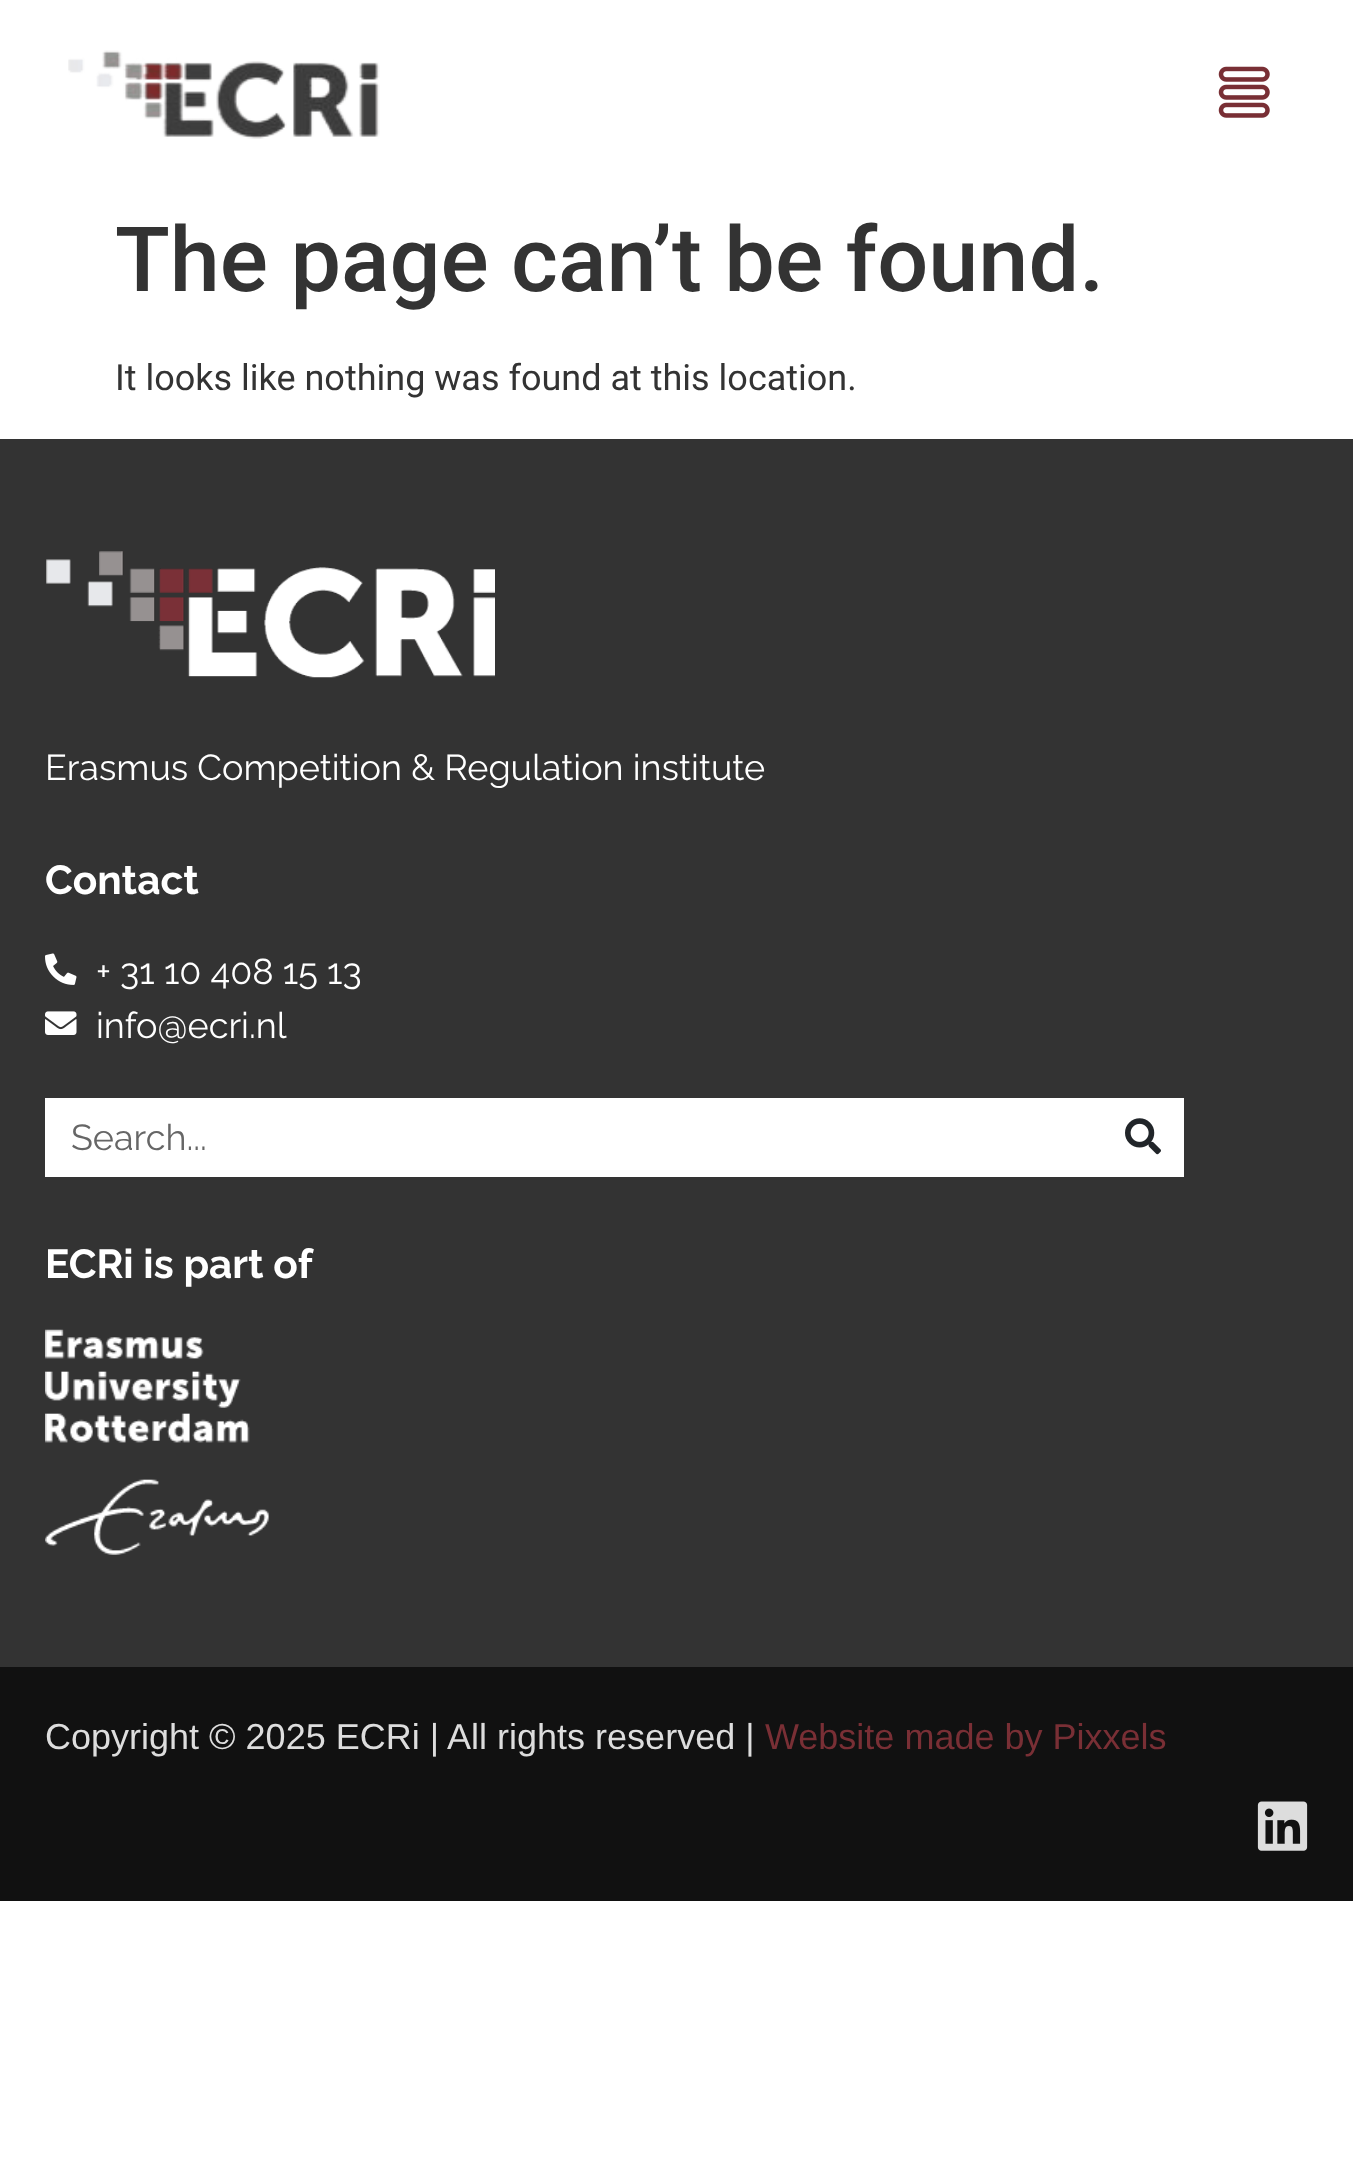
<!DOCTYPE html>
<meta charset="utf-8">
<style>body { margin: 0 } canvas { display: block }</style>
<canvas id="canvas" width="1353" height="2173"></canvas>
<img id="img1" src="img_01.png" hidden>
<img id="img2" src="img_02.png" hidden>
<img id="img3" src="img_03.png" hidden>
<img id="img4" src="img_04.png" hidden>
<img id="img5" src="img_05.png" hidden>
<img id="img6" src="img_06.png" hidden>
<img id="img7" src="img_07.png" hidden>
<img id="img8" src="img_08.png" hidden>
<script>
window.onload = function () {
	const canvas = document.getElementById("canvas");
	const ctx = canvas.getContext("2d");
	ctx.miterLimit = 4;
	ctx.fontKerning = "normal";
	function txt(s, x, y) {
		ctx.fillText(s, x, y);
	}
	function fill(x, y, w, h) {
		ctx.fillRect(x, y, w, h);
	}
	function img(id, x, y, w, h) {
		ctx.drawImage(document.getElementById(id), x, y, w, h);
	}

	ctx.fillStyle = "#FFFFFF";
	fill(0, 0, 1353, 2173);
	img("img1", 68, 50, 312, 89);
	img("img2", 1218, 66, 52, 52);
	ctx.fillStyle = "#333333";
	fill(0, 439, 1353, 1228);
	img("img3", 46, 551, 449, 127);
	img("img4", 45, 953, 32, 32);
	img("img5", 45, 1011, 32, 24);
	ctx.fillStyle = "#FFFFFF";
	fill(45, 1098, 1139, 79);
	img("img6", 1125, 1118, 36, 37);
	img("img7", 45, 1329, 224, 226);
	ctx.fillStyle = "#111111";
	fill(0, 1667, 1353, 234);
	img("img8", 1257, 1801, 51, 50);
	ctx.font = "500 90px Roboto";
	ctx.fillStyle = "#333333";
	txt("The page can’t be found.", 115, 291);
	ctx.font = "36px Roboto";
	txt("It looks like nothing was found at this location.", 115, 390);
	ctx.font = "36px Raleway";
	ctx.fillStyle = "#FFFFFF";
	txt("Erasmus Competition & Regulation institute", 45, 780);
	ctx.font = "bold 40.5px Raleway";
	txt("Contact", 45, 894);
	ctx.font = "36px Raleway";
	txt("+ 31 10 408 15 13", 96, 984);
	txt("info@ecri.nl", 96, 1038);
	ctx.fillStyle = "#666666";
	txt("Search...", 71, 1150);
	ctx.font = "bold 40.5px Raleway";
	ctx.fillStyle = "#FFFFFF";
	txt("ECRi is part of", 45, 1278);
	ctx.font = "36px Liberation Sans";
	ctx.fillStyle = "#DDDDDD";
	txt("Copyright © 2025 ECRi | All rights reserved |", 45, 1749);
	ctx.fillStyle = "#792F35";
	txt("Website made by Pixxels", 765, 1749);
};
</script>
